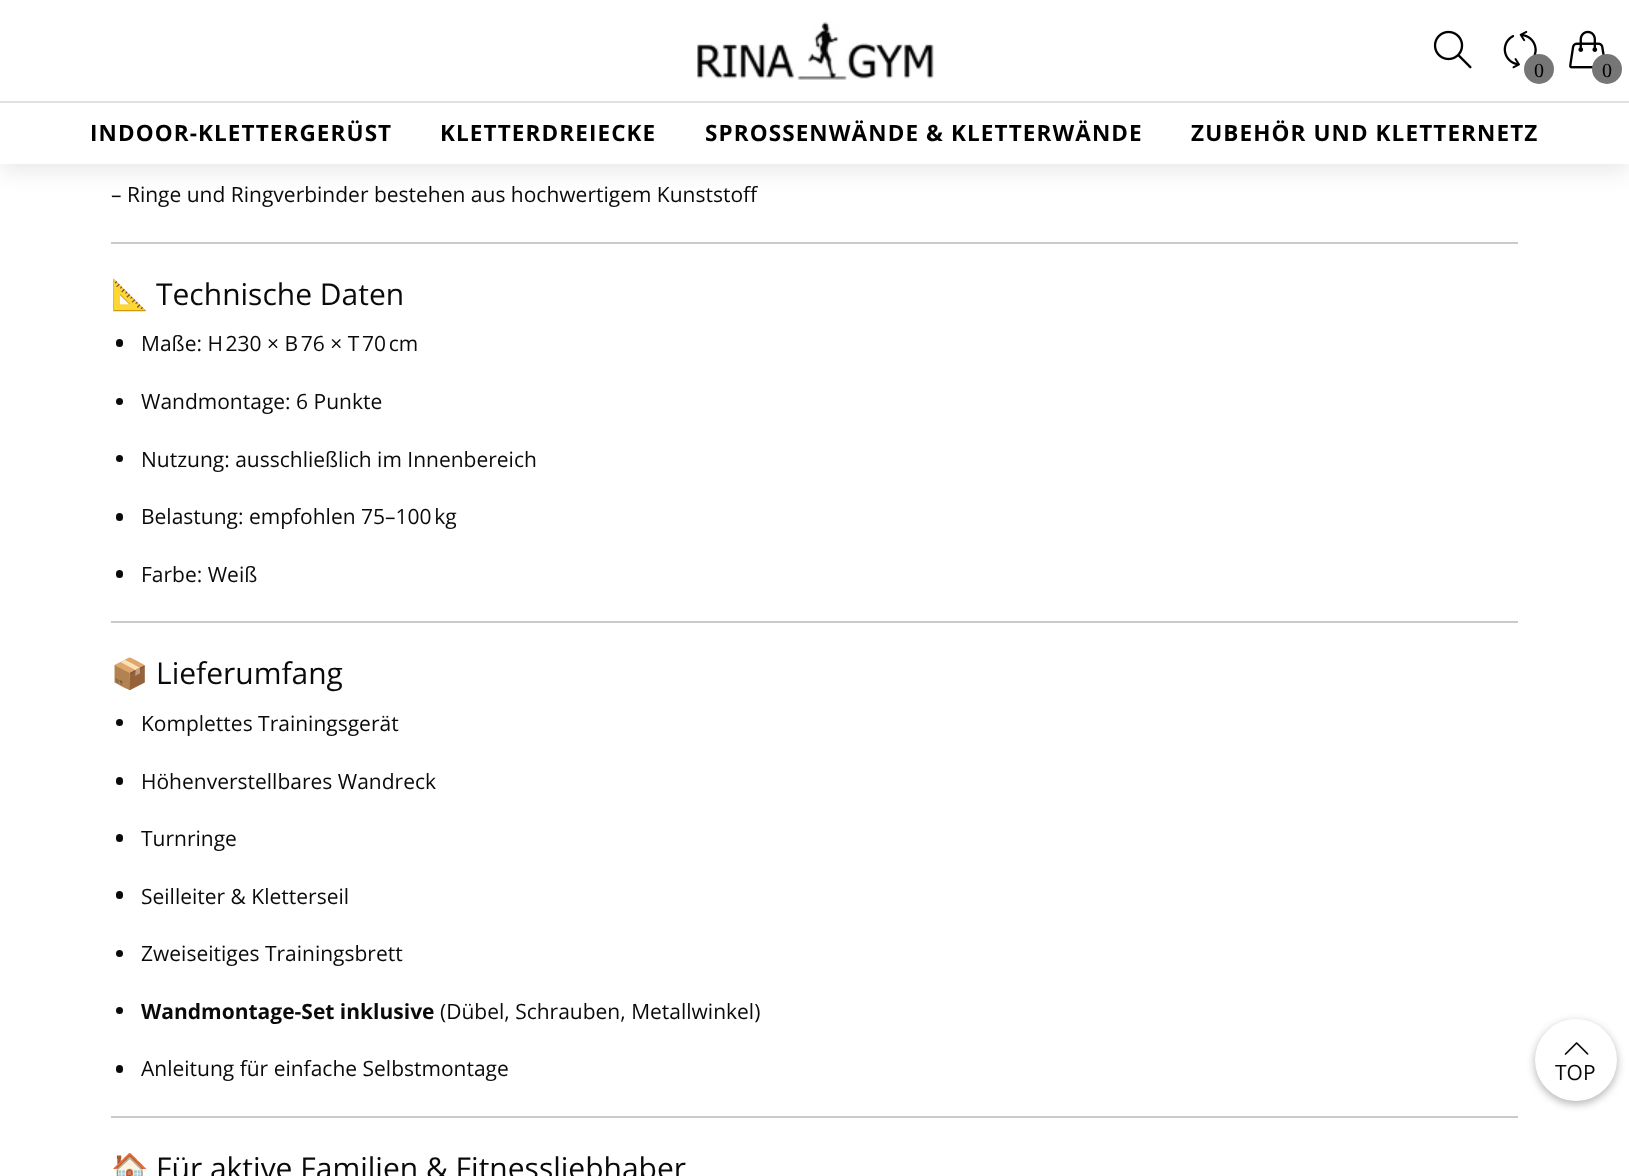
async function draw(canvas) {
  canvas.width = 1629
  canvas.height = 1176
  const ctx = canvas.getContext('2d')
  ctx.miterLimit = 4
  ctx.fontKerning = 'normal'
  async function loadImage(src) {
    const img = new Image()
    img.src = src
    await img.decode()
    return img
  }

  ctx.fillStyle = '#fff'
  ctx.fillRect(0, 0, 1629, 1176)
  ctx.fillStyle = '#1b1b1f1a'
  ctx.filter = 'blur(11px)'
  ctx.beginPath()
  ctx.rect(0, 8, 1629, 163)
  ctx.fill()
  ctx.filter = 'none'
  ctx.fillStyle = '#fff'
  ctx.fillRect(0, 0, 1629, 164)
  ctx.drawImage(await loadImage('image0.png'), 697, 21, 237, 59)
  ctx.drawImage(await loadImage('image1.png'), 1433, 30, 39, 39)
  ctx.drawImage(await loadImage('image2.png'), 1503, 30, 34, 39)
  ctx.fillStyle = '#767676'
  ctx.beginPath()
  ctx.arc(1539, 69, 15, 0, 2 * Math.PI)
  ctx.fill()
  ctx.font = '20px Liberation Serif'
  ctx.fillStyle = '#000'
  ctx.fillText('0', 1534, 77)
  ctx.drawImage(await loadImage('image3.png'), 1569, 30, 36, 39)
  ctx.fillStyle = '#767676'
  ctx.beginPath()
  ctx.arc(1607, 69, 15, 0, 2 * Math.PI)
  ctx.fill()
  ctx.fillStyle = '#000'
  ctx.fillText('0', 1602, 77)
  ctx.fillStyle = '#e1e1e1'
  ctx.fillRect(0, 101, 1629, 2)
  ctx.letterSpacing = '1.1px'
  ctx.font = 'bold 22.5px Open Sans'
  ctx.fillStyle = '#000'
  ctx.fillText('INDOOR-KLETTERGERÜST', 90, 141)
  ctx.fillText('KLETTERDREIECKE', 440, 141)
  ctx.fillText('SPROSSENWÄNDE & KLETTERWÄNDE', 705, 141)
  ctx.fillText('ZUBEHÖR UND KLETTERNETZ', 1191, 141)
  ctx.letterSpacing = '0px'
  ctx.font = '21px Open Sans'
  ctx.fillStyle = '#0a0a0a'
  ctx.fillText('– Ringe und Ringverbinder bestehen aus hochwertigem Kunststoff', 111, 202)
  ctx.fillStyle = '#cacaca'
  ctx.fillRect(111, 242, 1407, 2)
  ctx.font = '30px Noto Color Emoji'
  ctx.fillStyle = '#0a0a0a'
  ctx.fillText('📐', 111, 305)
  ctx.font = '30px Open Sans'
  ctx.fillText('Technische Daten', 156, 305)
  ctx.beginPath()
  ctx.roundRect(116, 339, 7, 8, 3.5)
  ctx.fill()
  ctx.font = '21px Open Sans'
  ctx.fillText('Maße: H 230 × B 76 × T 70 cm', 141, 351)
  ctx.beginPath()
  ctx.arc(119.5, 401.5, 3.5, 0, 2 * Math.PI)
  ctx.fill()
  ctx.fillText('Wandmontage: 6 Punkte', 141, 409)
  ctx.beginPath()
  ctx.arc(119.5, 458.5, 3.5, 0, 2 * Math.PI)
  ctx.fill()
  ctx.fillText('Nutzung: ausschließlich im Innenbereich', 141, 467)
  ctx.beginPath()
  ctx.roundRect(116, 513, 7, 8, 3.5)
  ctx.fill()
  ctx.fillText('Belastung: empfohlen 75–100 kg', 141, 524)
  ctx.beginPath()
  ctx.roundRect(116, 570, 7, 8, 3.5)
  ctx.fill()
  ctx.fillText('Farbe: Weiß', 141, 582)
  ctx.fillStyle = '#cacaca'
  ctx.fillRect(111, 621, 1407, 2)
  ctx.font = '30px Noto Color Emoji'
  ctx.fillStyle = '#0a0a0a'
  ctx.fillText('📦', 111, 684)
  ctx.font = '30px Open Sans'
  ctx.fillText('Lieferumfang', 156, 684)
  ctx.beginPath()
  ctx.arc(119.5, 722.5, 3.5, 0, 2 * Math.PI)
  ctx.fill()
  ctx.font = '21px Open Sans'
  ctx.fillText('Komplettes Trainingsgerät', 141, 731)
  ctx.beginPath()
  ctx.roundRect(116, 777, 7, 8, 3.5)
  ctx.fill()
  ctx.fillText('Höhenverstellbares Wandreck', 141, 789)
  ctx.beginPath()
  ctx.roundRect(116, 834, 7, 8, 3.5)
  ctx.fill()
  ctx.fillText('Turnringe', 141, 846)
  ctx.beginPath()
  ctx.roundRect(116, 891, 7, 8, 3.5)
  ctx.fill()
  ctx.fillText('Seilleiter & Kletterseil', 141, 904)
  ctx.beginPath()
  ctx.arc(119.5, 953.5, 3.5, 0, 2 * Math.PI)
  ctx.fill()
  ctx.fillText('Zweiseitiges Trainingsbrett', 141, 961)
  ctx.beginPath()
  ctx.arc(119.5, 1010.5, 3.5, 0, 2 * Math.PI)
  ctx.fill()
  ctx.font = 'bold 21px Open Sans'
  ctx.fillText('Wandmontage-Set inklusive', 141, 1019)
  ctx.font = '21px Open Sans'
  ctx.fillText('(Dübel, Schrauben, Metallwinkel)', 440, 1019)
  ctx.beginPath()
  ctx.roundRect(116, 1065, 7, 8, 3.5)
  ctx.fill()
  ctx.fillText('Anleitung für einfache Selbstmontage', 141, 1076)
  ctx.fillStyle = '#cacaca'
  ctx.fillRect(111, 1116, 1407, 2)
  ctx.font = '30px Noto Color Emoji'
  ctx.fillStyle = '#0a0a0a'
  ctx.fillText('🏠', 111, 1179)
  ctx.font = '30px Open Sans'
  ctx.fillText('Für aktive Familien & Fitnessliebhaber', 156, 1179)
  ctx.fillStyle = '#0303034d'
  ctx.filter = 'blur(4px)'
  ctx.beginPath()
  ctx.roundRect(1535, 1022, 82, 82, 41)
  ctx.fill()
  ctx.filter = 'none'
  ctx.fillStyle = '#fff'
  ctx.beginPath()
  ctx.arc(1576, 1060, 41, 0, 2 * Math.PI)
  ctx.fill()
  ctx.drawImage(await loadImage('image4.png'), 1564, 1042, 25, 13)
  ctx.font = '21px Open Sans'
  ctx.fillStyle = '#0a0a0a'
  ctx.fillText('TOP', 1555, 1080)
}

draw(document.querySelector('canvas'))
